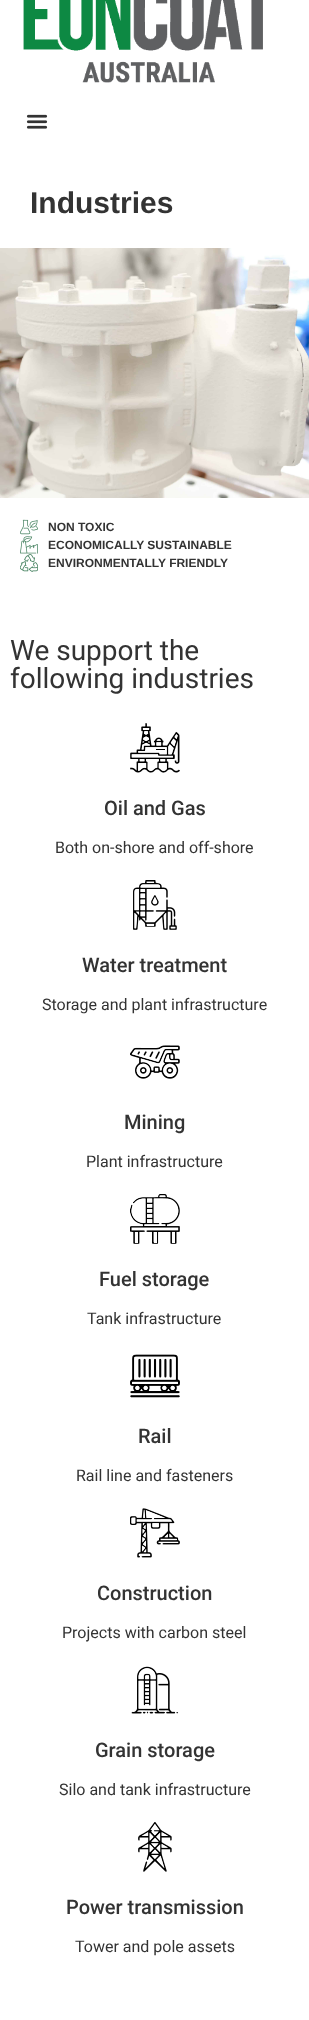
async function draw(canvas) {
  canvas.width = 309
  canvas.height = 2020
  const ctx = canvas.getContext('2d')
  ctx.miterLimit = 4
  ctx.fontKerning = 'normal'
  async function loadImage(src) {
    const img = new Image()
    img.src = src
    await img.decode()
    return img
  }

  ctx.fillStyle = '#fff'
  ctx.fillRect(0, 0, 309, 2020)
  ctx.drawImage(await loadImage('image0.png'), 23, 0, 240, 83)
  ctx.drawImage(await loadImage('image1.png'), 26, 114, 22, 15)
  ctx.font = 'bold 30px Liberation Sans'
  ctx.fillStyle = '#333'
  ctx.fillText('Industries', 30, 213)
  ctx.drawImage(await loadImage('image2.png'), 0, 248, 309, 250)
  ctx.drawImage(await loadImage('image3.png'), 20, 519, 18, 16)
  ctx.font = 'bold 12px Liberation Sans'
  ctx.fillText('NON TOXIC', 48, 531)
  ctx.drawImage(await loadImage('image4.png'), 20, 536, 18, 18)
  ctx.fillText('ECONOMICALLY SUSTAINABLE', 48, 549)
  ctx.drawImage(await loadImage('image5.png'), 20, 554, 18, 18)
  ctx.fillText('ENVIRONMENTALLY FRIENDLY', 48, 567)
  ctx.font = '28px Roboto'
  ctx.fillText('We support the', 10, 660)
  ctx.fillText('following industries', 10, 688)
  ctx.drawImage(await loadImage('image6.png'), 130, 723, 50, 50)
  ctx.font = '500 20px Roboto'
  ctx.fillText('Oil and Gas', 104, 815)
  ctx.font = '16px Roboto'
  ctx.fillText('Both on-shore and off-shore', 55, 853)
  ctx.drawImage(await loadImage('image7.png'), 133, 880, 44, 50)
  ctx.font = '500 20px Roboto'
  ctx.fillText('Water treatment', 82, 972)
  ctx.font = '16px Roboto'
  ctx.fillText('Storage and plant infrastructure', 42, 1010)
  ctx.drawImage(await loadImage('image8.png'), 130, 1045, 50, 34)
  ctx.font = '500 20px Roboto'
  ctx.fillText('Mining', 124, 1129)
  ctx.font = '16px Roboto'
  ctx.fillText('Plant infrastructure', 86, 1167)
  ctx.drawImage(await loadImage('image9.png'), 130, 1194, 50, 50)
  ctx.font = '500 20px Roboto'
  ctx.fillText('Fuel storage', 99, 1286)
  ctx.font = '16px Roboto'
  ctx.fillText('Tank infrastructure', 87, 1324)
  ctx.drawImage(await loadImage('image10.png'), 130, 1354, 50, 44)
  ctx.font = '500 20px Roboto'
  ctx.fillText('Rail', 138, 1443)
  ctx.font = '16px Roboto'
  ctx.fillText('Rail line and fasteners', 76, 1481)
  ctx.drawImage(await loadImage('image11.png'), 130, 1508, 50, 50)
  ctx.font = '500 20px Roboto'
  ctx.fillText('Construction', 97, 1600)
  ctx.font = '16px Roboto'
  ctx.fillText('Projects with carbon steel', 62, 1638)
  ctx.drawImage(await loadImage('image12.png'), 131, 1666, 48, 48)
  ctx.font = '500 20px Roboto'
  ctx.fillText('Grain storage', 95, 1757)
  ctx.font = '16px Roboto'
  ctx.fillText('Silo and tank infrastructure', 59, 1795)
  ctx.drawImage(await loadImage('image13.png'), 138, 1822, 34, 50)
  ctx.font = '500 20px Roboto'
  ctx.fillText('Power transmission', 66, 1914)
  ctx.font = '16px Roboto'
  ctx.fillText('Tower and pole assets', 75, 1952)
}

draw(document.querySelector('canvas'))
